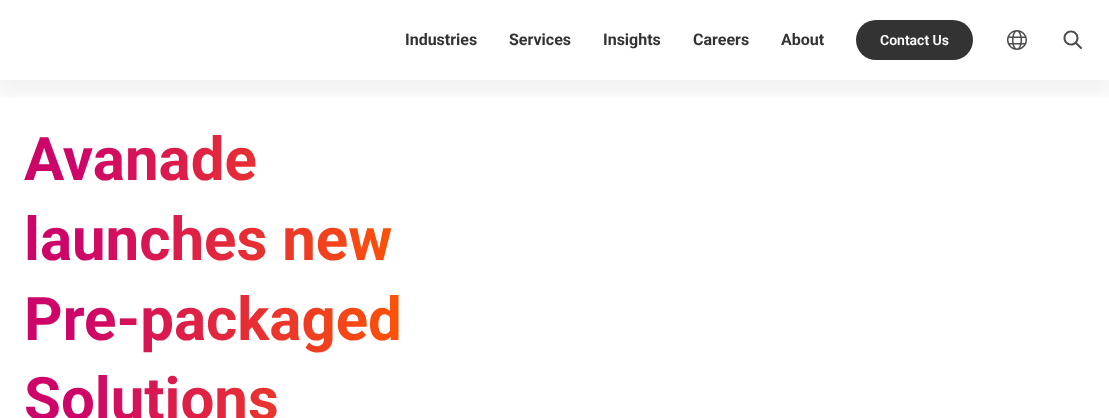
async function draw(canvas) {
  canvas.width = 1109
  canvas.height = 418
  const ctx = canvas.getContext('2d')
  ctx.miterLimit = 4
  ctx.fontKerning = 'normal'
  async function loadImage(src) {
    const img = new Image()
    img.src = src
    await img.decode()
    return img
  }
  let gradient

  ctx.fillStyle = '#fff'
  ctx.fillRect(0, 0, 1109, 418)
  ctx.save()
  ctx.beginPath()
  ctx.rect(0, 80, 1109, 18)
  ctx.clip()
  ctx.fillStyle = '#0000000d'
  ctx.filter = 'blur(10px)'
  ctx.beginPath()
  ctx.rect(-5, 5, 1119, 90)
  ctx.fill()
  ctx.filter = 'none'
  ctx.restore()
  ctx.font = 'bold 16px Roboto'
  ctx.fillStyle = '#333'
  ctx.fillText('Industries', 405, 45)
  ctx.fillText('Services', 509, 45)
  ctx.fillText('Insights', 603, 45)
  ctx.fillText('Careers', 693, 45)
  ctx.fillText('About', 781, 45)
  ctx.beginPath()
  ctx.roundRect(856, 20, 117, 40, 20)
  ctx.fill()
  ctx.font = '600 14px Roboto'
  ctx.fillStyle = '#fff'
  ctx.fillText('Contact Us', 880, 45)
  ctx.drawImage(await loadImage('image0.png'), 1007, 30, 20, 20)
  ctx.drawImage(await loadImage('image1.png'), 1063, 30, 19, 19)
  ctx.font = 'bold 60px Roboto'
  gradient = ctx.createLinearGradient(24, 280, 442, 280)
  gradient.addColorStop(0.13, '#ce0569')
  gradient.addColorStop(0.95, '#ff5800')
  ctx.fillStyle = gradient
  ctx.fillText('Avanade', 24, 180)
  ctx.fillText('launches new', 24, 260)
  ctx.fillText('Pre-packaged', 24, 340)
  ctx.fillText('Solutions', 24, 420)
}

draw(document.querySelector('canvas'))
